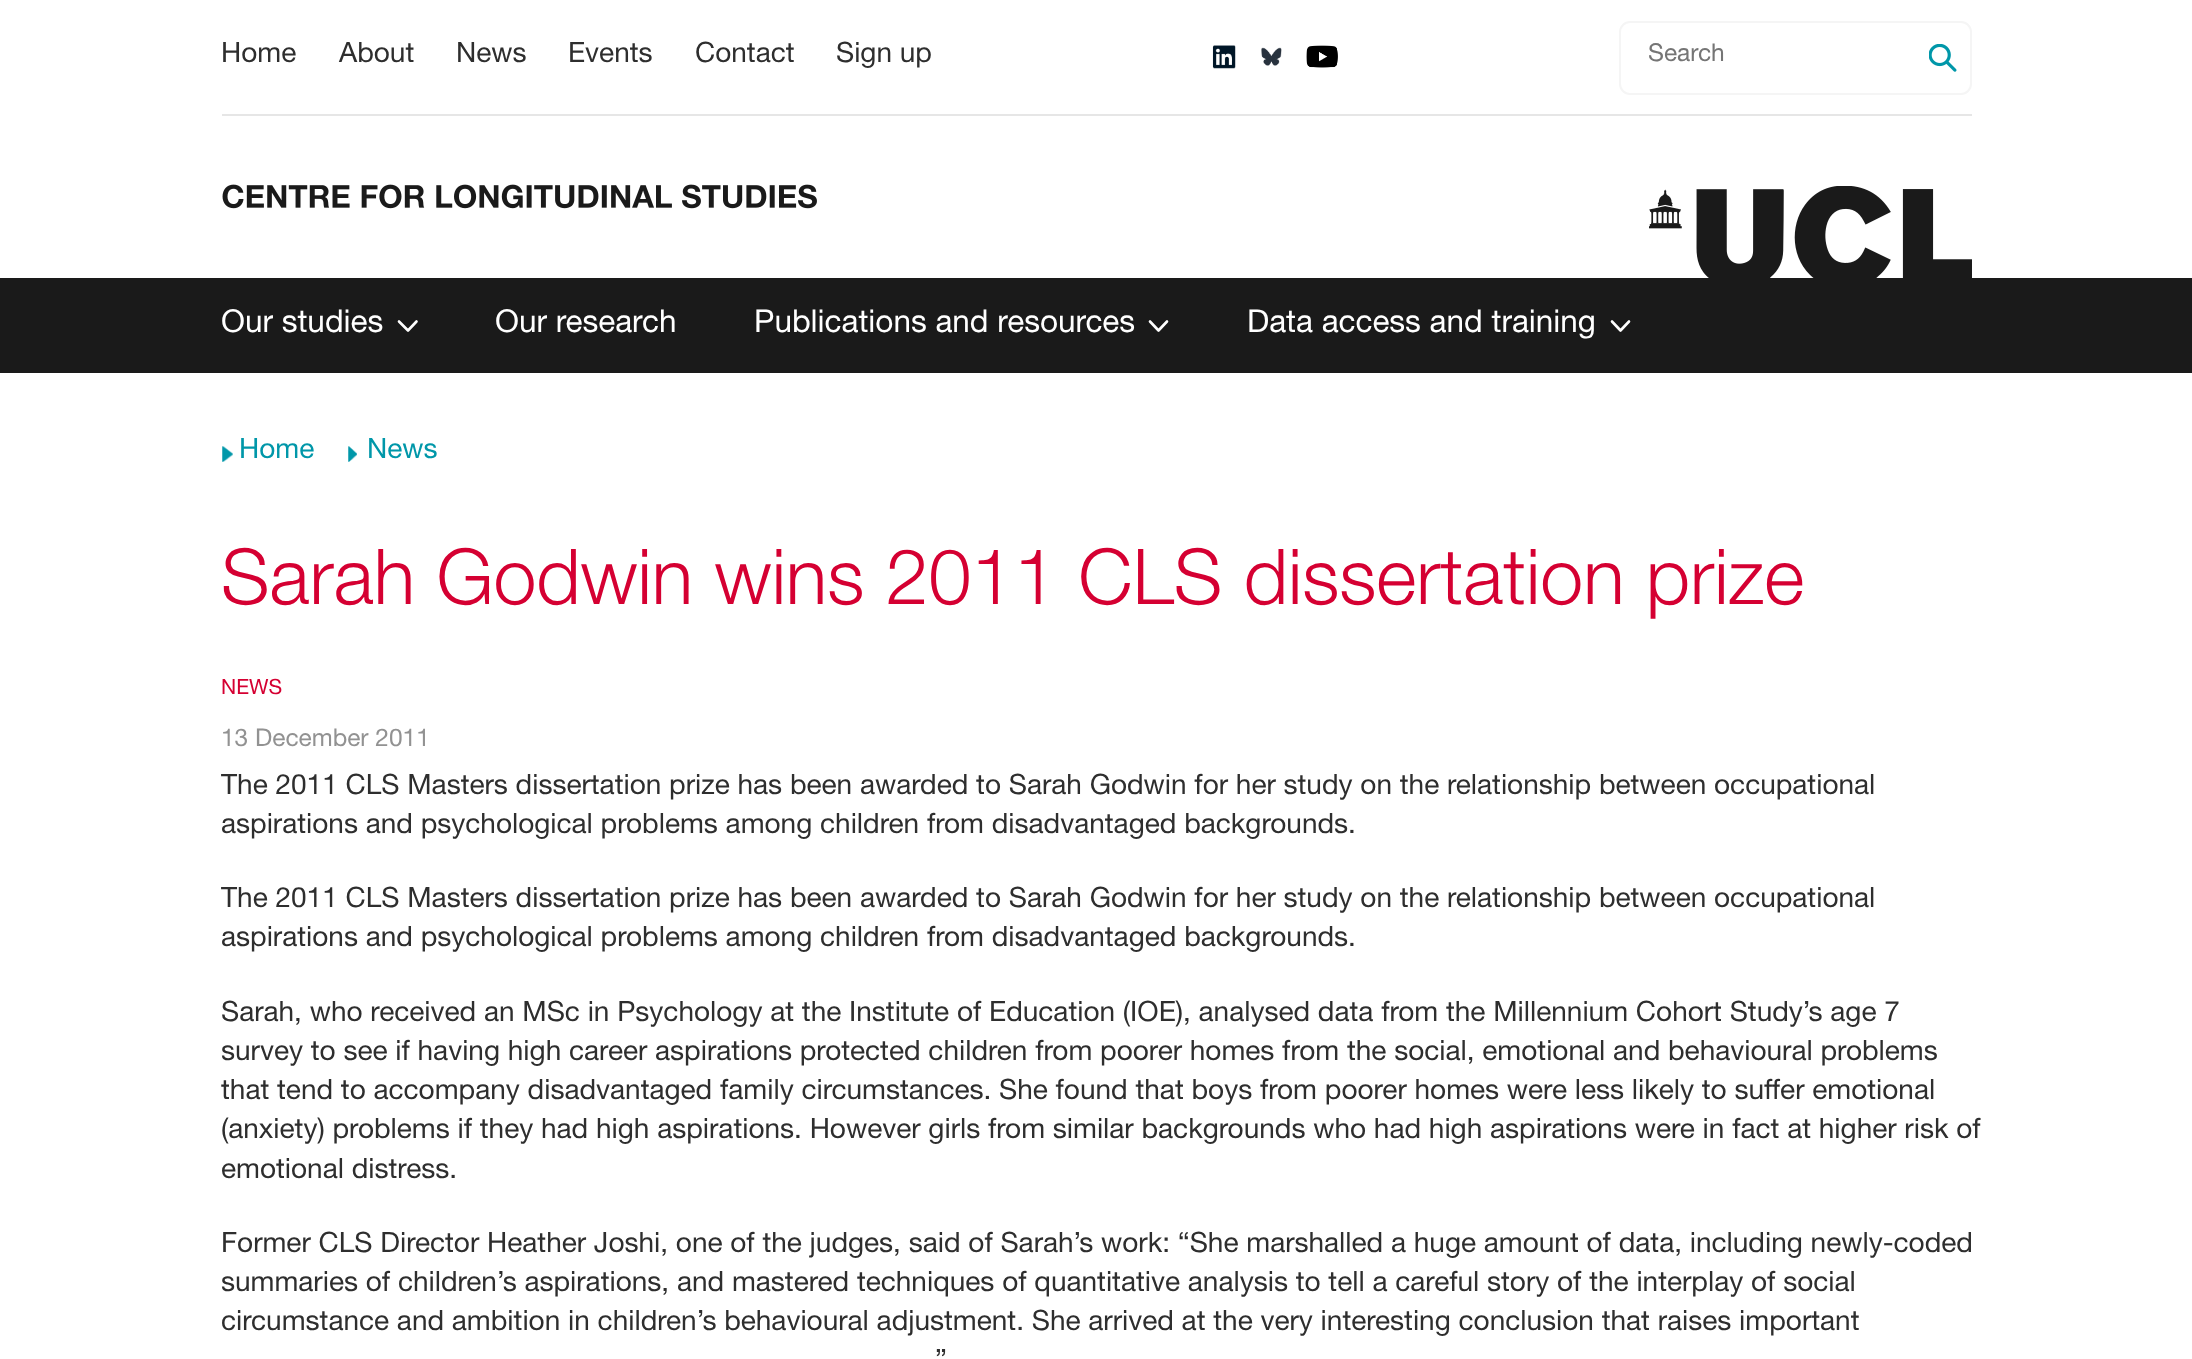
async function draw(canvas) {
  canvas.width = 2192
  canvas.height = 1359
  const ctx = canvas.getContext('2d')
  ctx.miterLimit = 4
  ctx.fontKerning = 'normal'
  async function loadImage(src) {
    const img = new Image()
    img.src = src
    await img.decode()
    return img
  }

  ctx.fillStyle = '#fff'
  ctx.fillRect(0, 0, 2192, 1359)
  ctx.fillStyle = '#e6e6e6'
  ctx.fillRect(222, 114, 1750, 2)
  ctx.font = '28px Helvetica Neue'
  ctx.fillStyle = '#2e2e2e'
  ctx.fillText('Home', 221, 62)
  ctx.fillText('About', 339, 62)
  ctx.fillText('News', 456, 62)
  ctx.fillText('Events', 568, 62)
  ctx.fillText('Contact', 695, 62)
  ctx.fillText('Sign up', 836, 62)
  ctx.drawImage(await loadImage('image0.png'), 1212, 45, 24, 24)
  ctx.drawImage(await loadImage('image1.png'), 1261, 47, 21, 19)
  ctx.drawImage(await loadImage('image2.png'), 1306, 45, 32, 23)
  ctx.beginPath()
  ctx.roundRect(1620, 22, 351, 72, 10)
  ctx.strokeStyle = '#f5f5f5'
  ctx.lineWidth = 2
  ctx.stroke()
  ctx.save()
  ctx.beginPath()
  ctx.rect(1649, 42, 213, 30)
  ctx.clip()
  ctx.font = '24.5px Helvetica Neue'
  ctx.fillStyle = '#757575'
  ctx.fillText('Search', 1648, 61)
  ctx.restore()
  ctx.drawImage(await loadImage('image3.png'), 1929, 44, 28, 28)
  ctx.drawImage(await loadImage('image4.png'), 222, 184, 595, 25)
  ctx.drawImage(await loadImage('image5.png'), 1649, 186, 323, 92)
  ctx.fillStyle = '#1a1a1a'
  ctx.fillRect(0, 278, 2192, 95)
  ctx.font = '31.5px Helvetica Neue'
  ctx.fillStyle = '#fff'
  ctx.fillText('Our studies', 221, 332)
  ctx.beginPath()
  ctx.moveTo(416.5, 321.5)
  ctx.lineTo(408, 330.5)
  ctx.lineTo(399, 321.5)
  ctx.strokeStyle = '#fff'
  ctx.lineWidth = 2.6
  ctx.lineCap = 'round'
  ctx.lineJoin = 'round'
  ctx.stroke()
  ctx.fillText('Our research', 495, 332)
  ctx.fillText('Publications and resources', 754, 332)
  ctx.beginPath()
  ctx.moveTo(1167, 321.5)
  ctx.lineTo(1158.5, 330.5)
  ctx.lineTo(1150, 321.5)
  ctx.stroke()
  ctx.fillText('Data access and training', 1247, 332)
  ctx.beginPath()
  ctx.moveTo(1629, 321.5)
  ctx.lineTo(1620.5, 330.5)
  ctx.lineTo(1612, 321.5)
  ctx.stroke()
  ctx.drawImage(await loadImage('image6.png'), 222, 446, 11, 16)
  ctx.font = '28px Helvetica Neue'
  ctx.fillStyle = '#0097a9'
  ctx.fillText('Home', 239, 458)
  ctx.drawImage(await loadImage('image7.png'), 348, 446, 9, 16)
  ctx.fillText('News', 367, 458)
  ctx.font = '300 77px Helvetica Neue'
  ctx.fillStyle = '#d50032'
  ctx.fillText('Sarah Godwin wins 2011 CLS dissertation prize', 221, 604)
  ctx.font = '21px Helvetica Neue'
  ctx.fillText('NEWS', 221, 694)
  ctx.font = '24.5px Helvetica Neue'
  ctx.fillStyle = '#929292'
  ctx.fillText('13 December 2011', 221, 746)
  ctx.font = '28px Helvetica Neue'
  ctx.fillStyle = '#2e2e2e'
  ctx.fillText('The 2011 CLS Masters dissertation prize has been awarded to Sarah Godwin for her study on the relationship between occupational', 221, 794)
  ctx.fillText('aspirations and psychological problems among children from disadvantaged backgrounds.', 221, 833)
  ctx.fillText('The 2011 CLS Masters dissertation prize has been awarded to Sarah Godwin for her study on the relationship between occupational', 221, 907)
  ctx.fillText('aspirations and psychological problems among children from disadvantaged backgrounds.', 221, 946)
  ctx.fillText('Sarah, who received an MSc in Psychology at the Institute of Education (IOE), analysed data from the Millennium Cohort Study’s age 7', 221, 1021)
  ctx.fillText('survey to see if having high career aspirations protected children from poorer homes from the social, emotional and behavioural problems', 221, 1060)
  ctx.fillText('that tend to accompany disadvantaged family circumstances. She found that boys from poorer homes were less likely to suffer emotional', 221, 1099)
  ctx.fillText('(anxiety) problems if they had high aspirations. However girls from similar backgrounds who had high aspirations were in fact at higher risk of', 221, 1138)
  ctx.fillText('emotional distress.', 221, 1178)
  ctx.fillText('Former CLS Director Heather Joshi, one of the judges, said of Sarah’s work: “She marshalled a huge amount of data, including newly-coded', 221, 1252)
  ctx.fillText('summaries of children’s aspirations, and mastered techniques of quantitative analysis to tell a careful story of the interplay of social', 221, 1291)
  ctx.fillText('circumstance and ambition in children’s behavioural adjustment. She arrived at the very interesting conclusion that raises important', 221, 1330)
  ctx.fillText('”', 935, 1369)
}

draw(document.querySelector('canvas'))
